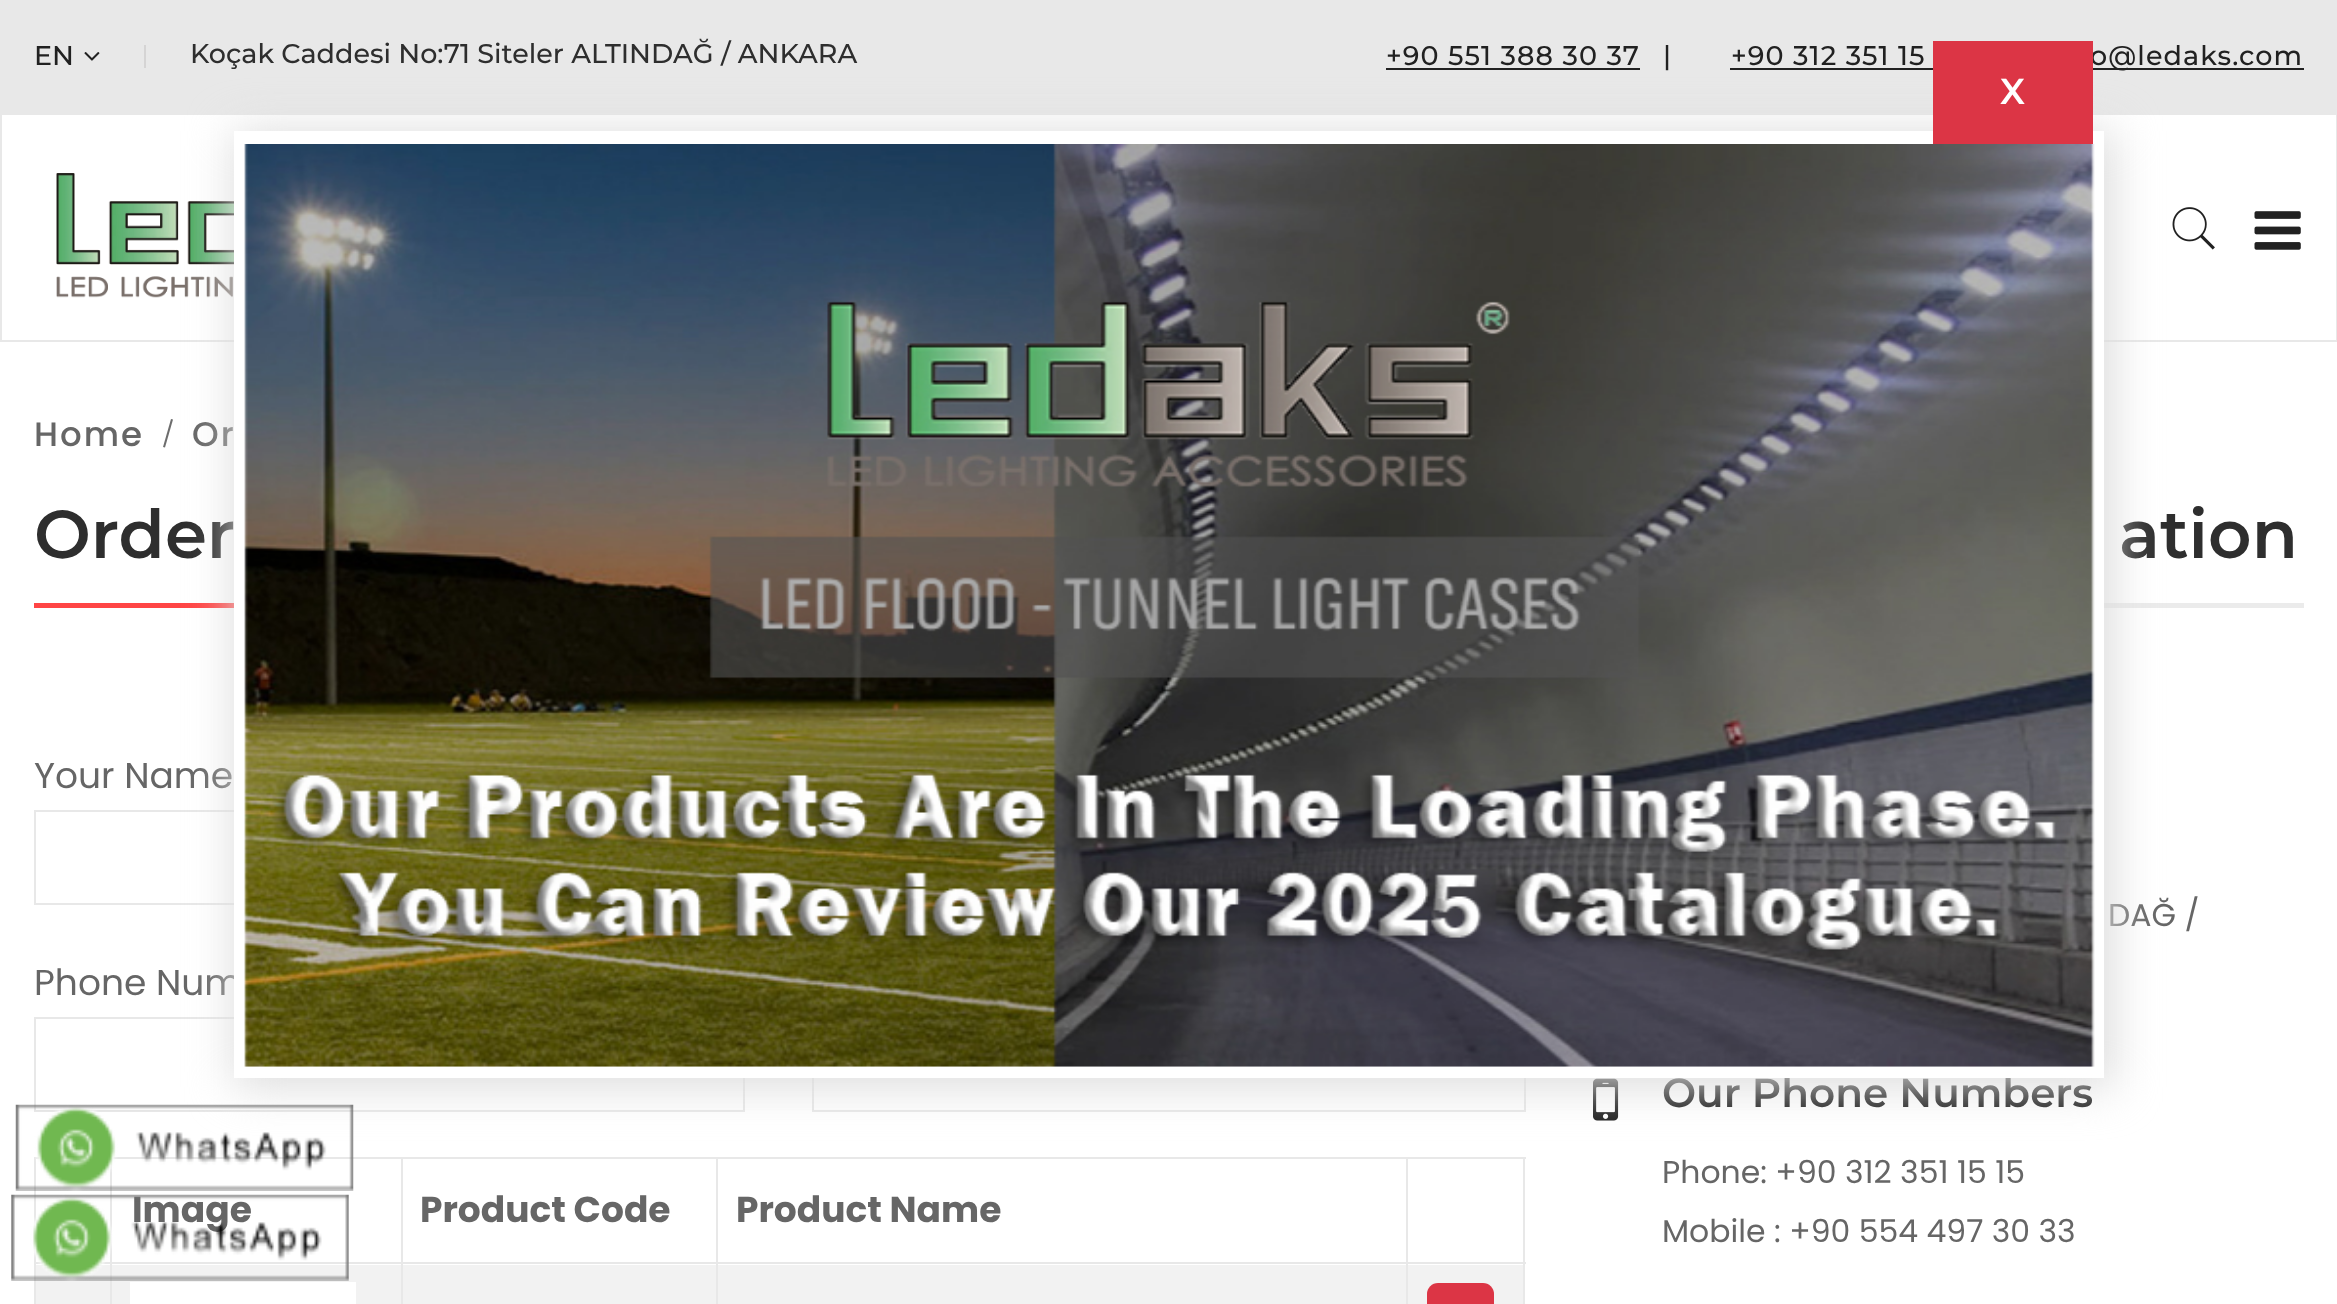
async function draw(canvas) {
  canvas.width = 2337
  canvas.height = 1304
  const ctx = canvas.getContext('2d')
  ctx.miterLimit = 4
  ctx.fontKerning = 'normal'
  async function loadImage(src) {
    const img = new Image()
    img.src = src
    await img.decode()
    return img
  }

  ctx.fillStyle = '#fff'
  ctx.fillRect(0, 0, 2337, 1304)
  ctx.fillStyle = '#e8e8e8'
  ctx.fillRect(0, 0, 2337, 113)
  ctx.font = '500 27px Montserrat'
  ctx.fillStyle = '#212121'
  ctx.fillText('EN', 34, 65)
  ctx.drawImage(await loadImage('image0.png'), 84, 52, 16, 9)
  ctx.fillStyle = '#d5d4d4'
  ctx.fillRect(144, 45, 2, 23)
  ctx.fillStyle = '#2e2e2e'
  ctx.fillText('Koçak Caddesi No:71 Siteler ALTINDAĞ / ANKARA', 190, 63)
  ctx.letterSpacing = '1.1px'
  ctx.fillStyle = '#212121'
  ctx.fillText('+90 551 388 30 37', 1386, 65)
  ctx.fillRect(1386, 68, 254, 2)
  ctx.letterSpacing = '0px'
  ctx.fillText('|', 1663, 65)
  ctx.letterSpacing = '1.1px'
  ctx.fillText('+90 312 351 15', 1731, 65)
  ctx.fillRect(1730, 68, 203, 2)
  ctx.fillRect(2093, 68, 211, 2)
  ctx.fillText('o@ledaks.com', 2090, 65)
  ctx.strokeStyle = '#e8e8e8'
  ctx.lineWidth = 2
  ctx.strokeRect(1, 114, 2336, 227)
  ctx.drawImage(await loadImage('image1.png'), 56, 173, 178, 125)
  ctx.drawImage(await loadImage('image2.png'), 2172, 207, 43, 43)
  ctx.drawImage(await loadImage('image3.png'), 2254, 211, 47, 39)
  ctx.letterSpacing = '2px'
  ctx.font = '500 34px Poppins'
  ctx.fillStyle = '#666'
  ctx.fillText('Home', 34, 446)
  ctx.fillStyle = '#6d6d6d'
  ctx.beginPath()
  ctx.moveTo(173, 419.5)
  ctx.lineTo(165, 447.5)
  ctx.lineTo(163, 447)
  ctx.lineTo(171, 419)
  ctx.closePath()
  ctx.fill()
  ctx.fillStyle = '#666'
  ctx.fillText('Or', 192, 446)
  ctx.letterSpacing = '0px'
  ctx.font = '600 67.5px Montserrat'
  ctx.fillStyle = '#2e2e2e'
  ctx.fillText('Order', 34, 558)
  ctx.fillStyle = '#ff4545'
  ctx.fillRect(34, 603, 200, 5)
  ctx.font = '36px Poppins'
  ctx.fillStyle = '#666'
  ctx.fillText('Your Name', 34, 788)
  ctx.strokeRect(35, 811, 709, 93)
  ctx.fillText('Phone Num', 34, 995)
  ctx.strokeRect(35, 1018, 709, 93)
  ctx.strokeRect(813, 1018, 712, 93)
  ctx.fillStyle = '#e8e8e8'
  ctx.fillRect(34, 1262, 1492, 2)
  ctx.fillRect(1523, 1262, 2, 42)
  ctx.fillRect(34, 1262, 2, 42)
  ctx.fillStyle = '#f2f2f2'
  ctx.fillRect(36, 1265, 365, 39)
  ctx.fillStyle = '#e8e8e8'
  ctx.fillRect(34, 1157, 1492, 2)
  ctx.fillRect(110, 1157, 2, 147)
  ctx.fillStyle = '#fff'
  ctx.fillRect(130, 1282, 226, 22)
  ctx.fillStyle = '#f2f2f2'
  ctx.fillRect(403, 1265, 313, 39)
  ctx.fillStyle = '#e8e8e8'
  ctx.fillRect(401, 1157, 2, 147)
  ctx.fillStyle = '#f2f2f2'
  ctx.fillRect(718, 1265, 688, 39)
  ctx.fillStyle = '#e8e8e8'
  ctx.fillRect(716, 1157, 2, 147)
  ctx.fillStyle = '#f2f2f2'
  ctx.fillRect(1408, 1265, 115, 39)
  ctx.fillStyle = '#e8e8e8'
  ctx.fillRect(1406, 1157, 2, 147)
  ctx.fillStyle = '#dc3545'
  ctx.beginPath()
  ctx.roundRect(1427, 1283, 67, 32, 11)
  ctx.fill()
  ctx.fillStyle = '#e8e8e8'
  ctx.fillRect(1523, 1157, 2, 108)
  ctx.fillRect(34, 1157, 2, 108)
  ctx.font = 'bold 36px Poppins'
  ctx.fillStyle = '#666'
  ctx.fillText('Image', 132, 1222)
  ctx.fillText('Product Code', 420, 1222)
  ctx.fillText('Product Name', 736, 1222)
  ctx.font = '600 67.5px Montserrat'
  ctx.fillStyle = '#2e2e2e'
  ctx.fillText('ation', 2119, 558)
  ctx.fillStyle = '#ebebeb'
  ctx.fillRect(2104, 603, 200, 5)
  ctx.font = '31.5px Poppins'
  ctx.fillStyle = '#666'
  ctx.fillText('DAĞ /', 2108, 926)
  ctx.drawImage(await loadImage('image4.png'), 1593, 1078, 26, 43)
  ctx.font = '600 40.5px Montserrat'
  ctx.fillStyle = '#212121'
  ctx.fillText('Our Phone Numbers', 1662, 1107)
  ctx.font = '31.5px Poppins'
  ctx.fillStyle = '#666'
  ctx.fillText('Phone: +90 312 351 15 15', 1662, 1183)
  ctx.fillText('Mobile : +90 554 497 30 33', 1662, 1242)
  ctx.fillStyle = '#dcdcdc'
  ctx.filter = 'blur(22.5px)'
  ctx.beginPath()
  ctx.rect(234, 131, 1879, 956)
  ctx.fill()
  ctx.filter = 'none'
  ctx.drawImage(await loadImage('image5.png'), 15, 1104, 339, 87)
  ctx.drawImage(await loadImage('image6.png'), 11, 1194, 338, 87)
  ctx.fillStyle = '#fff'
  ctx.fillRect(234, 131, 1870, 947)
  ctx.fillStyle = '#dc3545'
  ctx.fillRect(1933, 41, 160, 103)
  ctx.font = '600 36px Montserrat'
  ctx.fillStyle = '#fff'
  ctx.fillText('X', 2000, 104)
  ctx.drawImage(await loadImage('image7.png'), 244, 144, 1851, 923)
}

draw(document.querySelector('canvas'))
